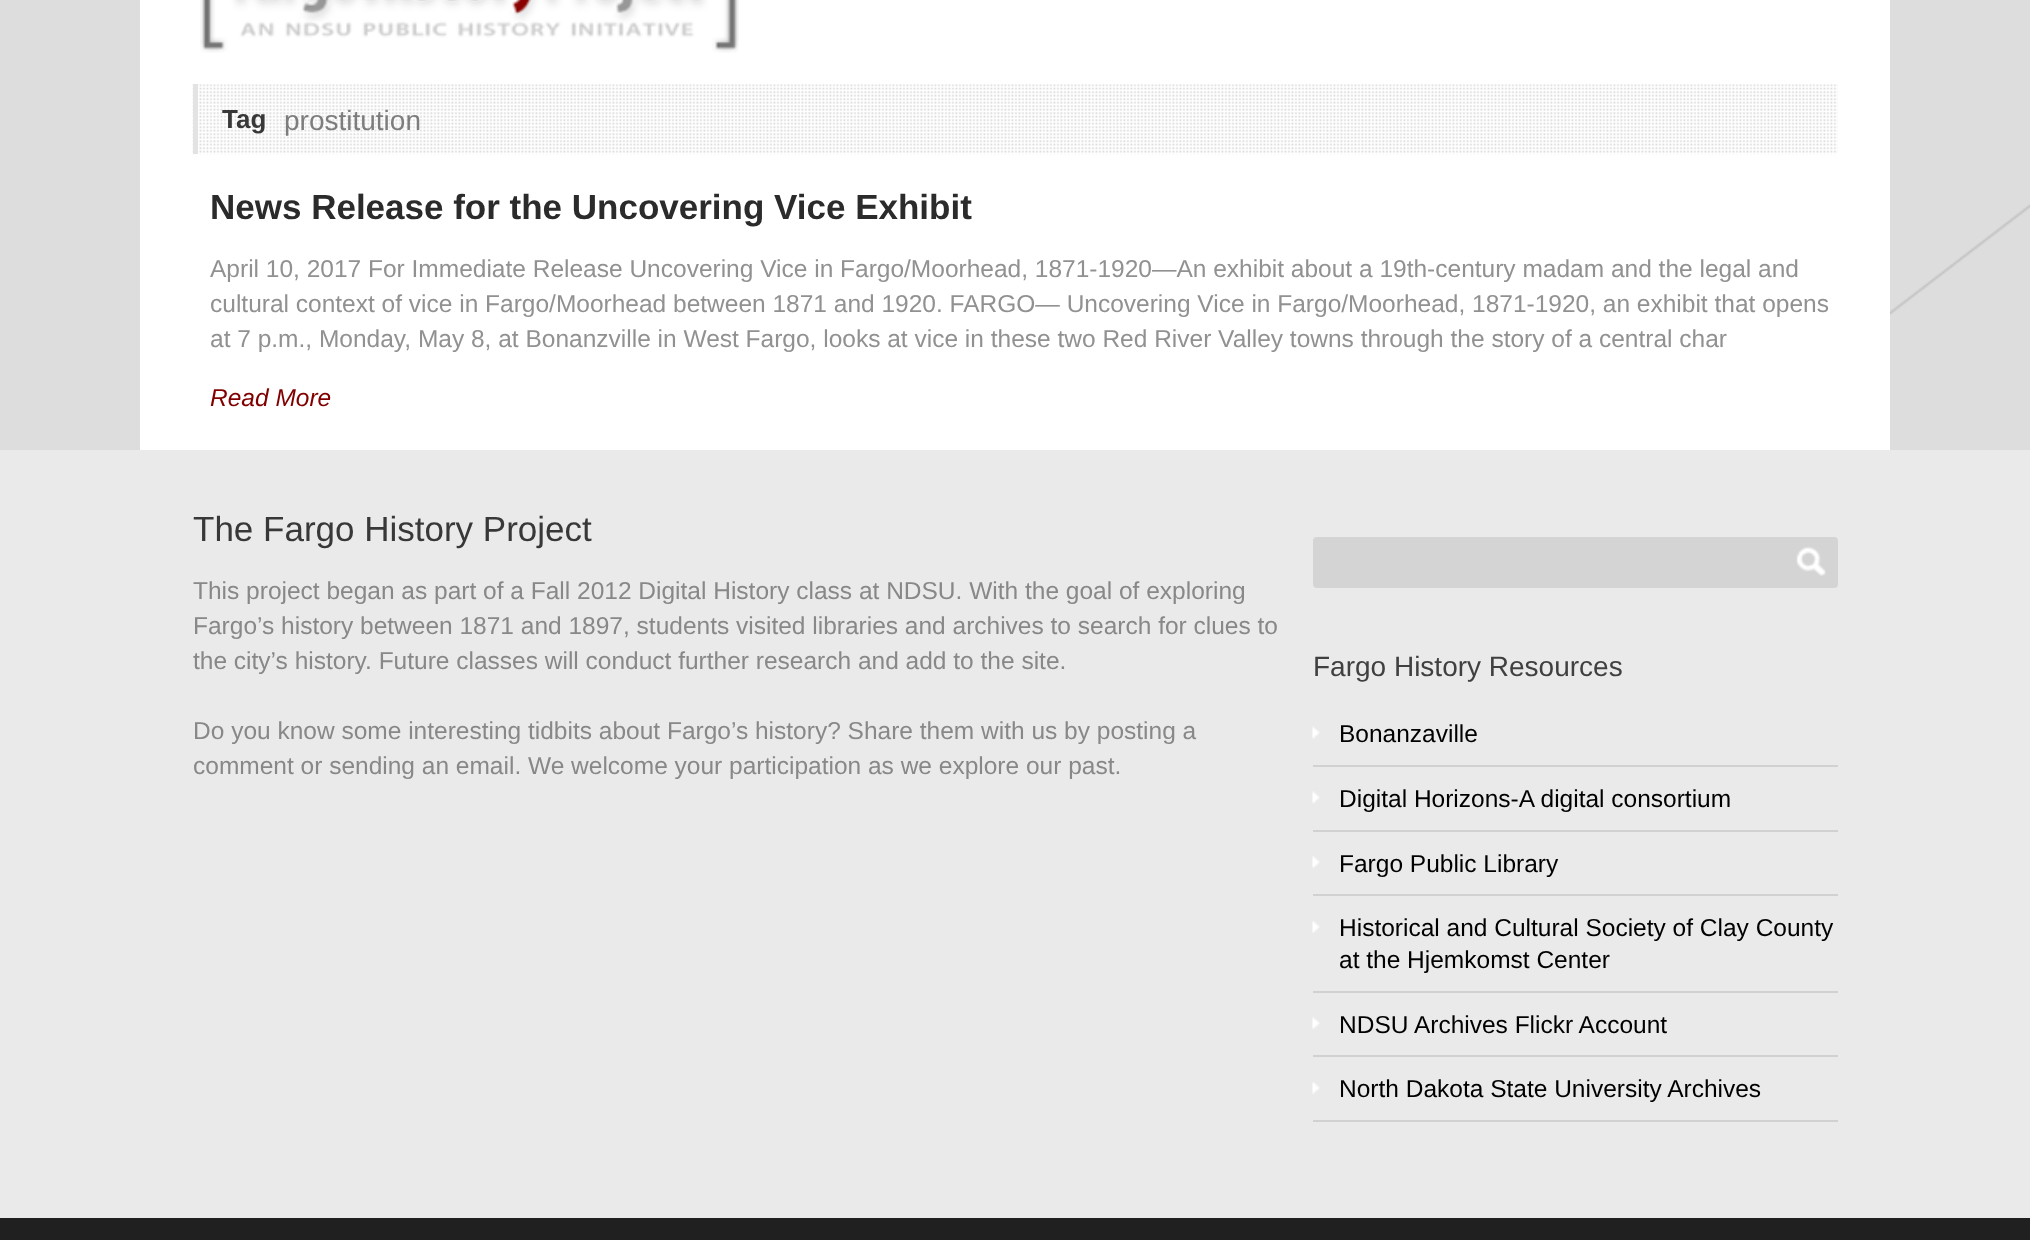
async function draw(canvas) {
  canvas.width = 2030
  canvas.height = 1240
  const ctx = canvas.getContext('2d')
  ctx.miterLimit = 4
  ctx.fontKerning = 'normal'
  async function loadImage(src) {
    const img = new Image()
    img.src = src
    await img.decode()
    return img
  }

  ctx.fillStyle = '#ddd'
  ctx.fillRect(0, 0, 2030, 1240)
  ctx.drawImage(await loadImage('image0.png'), 1890, 204, 140, 111)
  ctx.fillStyle = '#fff'
  ctx.fillRect(140, 0, 1750, 450)
  ctx.drawImage(await loadImage('image1.png'), 200, 0, 539, 53)
  ctx.drawImage(await loadImage('image2.png'), 192, 84, 1646, 71)
  ctx.fillStyle = '#e3e3e3'
  ctx.fillRect(193, 84, 5, 70)
  ctx.font = 'bold 26px Liberation Sans'
  ctx.fillStyle = '#383838'
  ctx.fillText('Tag', 222, 128)
  ctx.font = '28px Liberation Sans'
  ctx.fillStyle = '#7d7d7d'
  ctx.fillText('prostitution', 284, 130)
  ctx.font = 'bold 35px Liberation Sans'
  ctx.fillStyle = '#2b2b2b'
  ctx.fillText('News Release for the Uncovering Vice Exhibit', 210, 219)
  ctx.font = '24.5px Liberation Sans'
  ctx.fillStyle = '#919191'
  ctx.fillText('April 10, 2017 For Immediate Release Uncovering Vice in Fargo/Moorhead, 1871-1920—An exhibit about a 19th-century madam and the legal and', 210, 277)
  ctx.fillText('cultural context of vice in Fargo/Moorhead between 1871 and 1920. FARGO— Uncovering Vice in Fargo/Moorhead, 1871-1920, an exhibit that opens', 210, 312)
  ctx.fillText('at 7 p.m., Monday, May 8, at Bonanzville in West Fargo, looks at vice in these two Red River Valley towns through the story of a central char', 210, 347)
  ctx.font = 'italic 24.5px Liberation Sans'
  ctx.fillStyle = '#800000'
  ctx.fillText('Read More', 210, 406)
  ctx.fillStyle = '#eaeaea'
  ctx.fillRect(0, 450, 2030, 768)
  ctx.font = '35px Liberation Sans'
  ctx.fillStyle = '#383838'
  ctx.fillText('The Fargo History Project', 193, 541)
  ctx.font = '24.5px Liberation Sans'
  ctx.fillStyle = '#888'
  ctx.fillText('This project began as part of a Fall 2012 Digital History class at NDSU. With the goal of exploring', 193, 599)
  ctx.fillText('Fargo’s history between 1871 and 1897, students visited libraries and archives to search for clues to', 193, 634)
  ctx.fillText('the city’s history. Future classes will conduct further research and add to the site.', 193, 669)
  ctx.fillText('Do you know some interesting tidbits about Fargo’s history? Share them with us by posting a', 193, 739)
  ctx.fillText('comment or sending an email. We welcome your participation as we explore our past.', 193, 774)
  ctx.fillStyle = '#d4d4d4'
  ctx.beginPath()
  ctx.roundRect(1314, 538, 523, 49, 3)
  ctx.fill()
  ctx.strokeStyle = '#d4d4d4'
  ctx.lineWidth = 2
  ctx.stroke()
  ctx.drawImage(await loadImage('image3.png'), 1796, 546, 30, 30)
  ctx.font = '28px Liberation Sans'
  ctx.fillStyle = '#404040'
  ctx.fillText('Fargo History Resources', 1313, 676)
  ctx.drawImage(await loadImage('image4.png'), 1312, 726, 8, 13)
  ctx.fillStyle = '#d1d1d1'
  ctx.fillRect(1313, 765, 525, 2)
  ctx.font = '24.5px Liberation Sans'
  ctx.fillStyle = '#000'
  ctx.fillText('Bonanzaville', 1339, 742)
  ctx.drawImage(await loadImage('image5.png'), 1312, 791, 8, 13)
  ctx.fillStyle = '#d1d1d1'
  ctx.fillRect(1313, 830, 525, 2)
  ctx.fillStyle = '#000'
  ctx.fillText('Digital Horizons-A digital consortium', 1339, 807)
  ctx.drawImage(await loadImage('image6.png'), 1312, 856, 8, 12)
  ctx.fillStyle = '#d1d1d1'
  ctx.fillRect(1313, 894, 525, 2)
  ctx.fillStyle = '#000'
  ctx.fillText('Fargo Public Library', 1339, 872)
  ctx.drawImage(await loadImage('image7.png'), 1312, 921, 8, 12)
  ctx.fillStyle = '#d1d1d1'
  ctx.fillRect(1313, 991, 525, 2)
  ctx.fillStyle = '#000'
  ctx.fillText('Historical and Cultural Society of Clay County', 1339, 936)
  ctx.fillText('at the Hjemkomst Center', 1339, 968)
  ctx.drawImage(await loadImage('image6.png'), 1312, 1017, 8, 12)
  ctx.fillStyle = '#d1d1d1'
  ctx.fillRect(1313, 1055, 525, 2)
  ctx.fillStyle = '#000'
  ctx.fillText('NDSU Archives Flickr Account', 1339, 1033)
  ctx.drawImage(await loadImage('image7.png'), 1312, 1082, 8, 12)
  ctx.fillStyle = '#d1d1d1'
  ctx.fillRect(1313, 1120, 525, 2)
  ctx.fillStyle = '#000'
  ctx.fillText('North Dakota State University Archives', 1339, 1097)
  ctx.fillStyle = '#202020'
  ctx.fillRect(0, 1218, 2030, 22)
}

draw(document.querySelector('canvas'))
